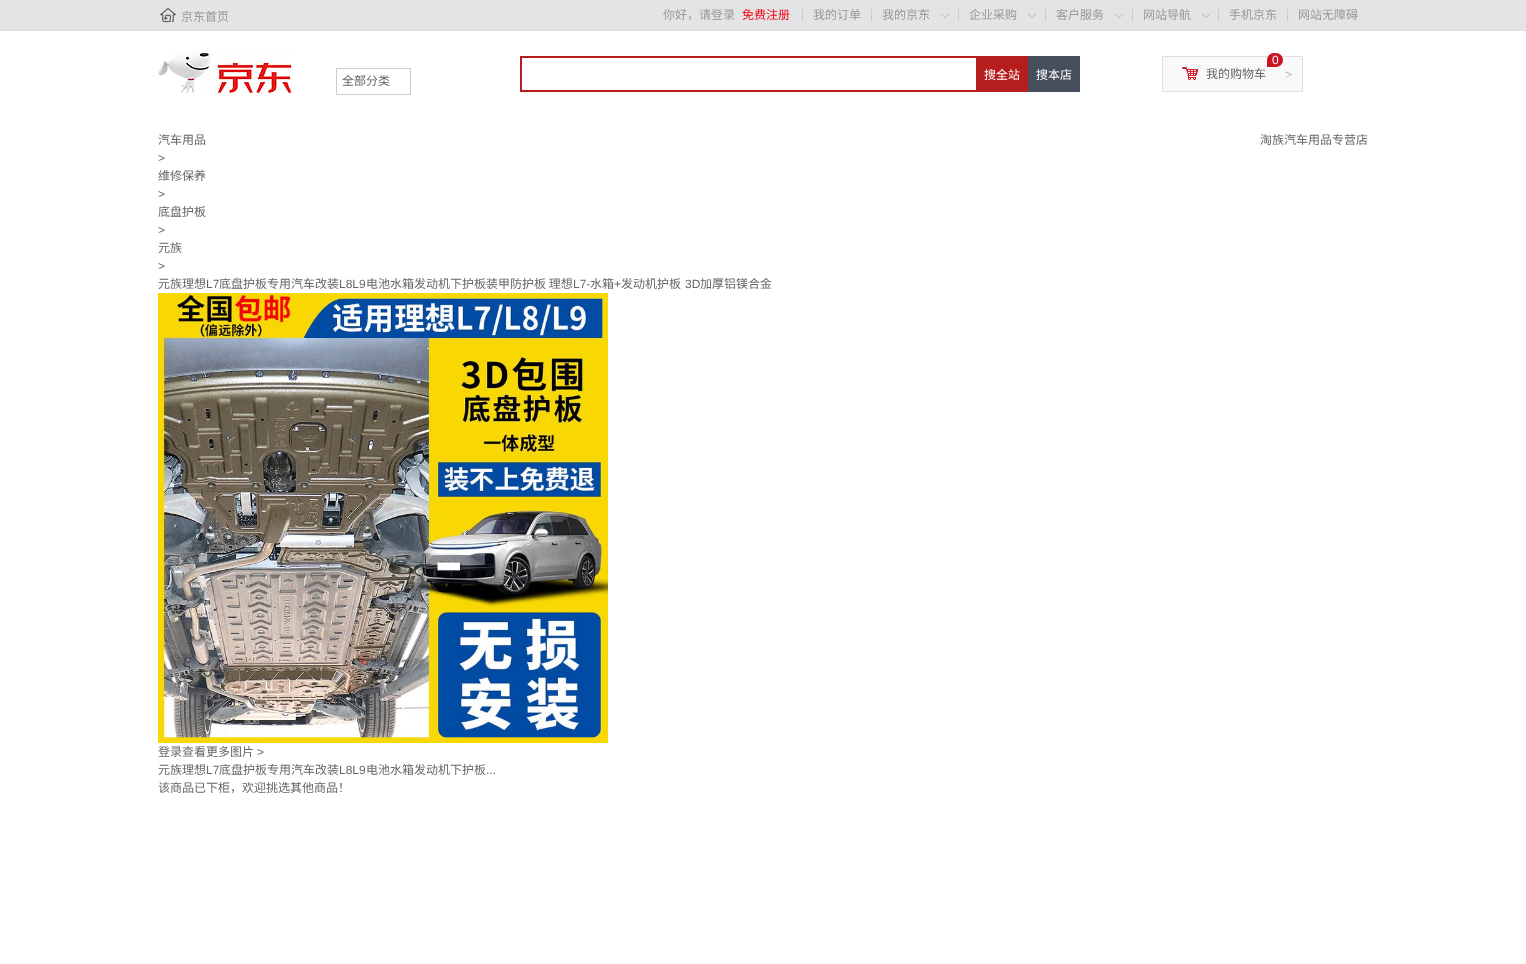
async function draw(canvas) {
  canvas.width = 1526
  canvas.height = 964
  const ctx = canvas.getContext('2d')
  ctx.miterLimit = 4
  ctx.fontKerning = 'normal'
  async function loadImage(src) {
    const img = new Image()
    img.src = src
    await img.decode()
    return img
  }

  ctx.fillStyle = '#fff'
  ctx.fillRect(0, 0, 1526, 964)
  ctx.fillStyle = '#e3e4e5'
  ctx.fillRect(0, 0, 1526, 30)
  ctx.fillStyle = '#ddd'
  ctx.fillRect(0, 30, 1526, 1)
  ctx.drawImage(await loadImage('image0.png'), 160, 8, 16, 15)
  ctx.font = '12px Noto Sans CJK SC'
  ctx.fillStyle = '#999'
  ctx.fillText('京东首页', 181, 21)
  ctx.fillText('你好，请登录', 663, 19)
  ctx.fillStyle = '#f30213'
  ctx.fillText('免费注册', 742, 19)
  ctx.fillStyle = '#ccc'
  ctx.fillRect(802, 9, 1, 12)
  ctx.fillStyle = '#999'
  ctx.fillText('我的订单', 813, 19)
  ctx.fillStyle = '#ccc'
  ctx.fillRect(871, 9, 1, 12)
  ctx.fillStyle = '#999'
  ctx.fillText('我的京东', 882, 19)
  ctx.drawImage(await loadImage('image1.png'), 940, 13, 10, 5)
  ctx.fillStyle = '#ccc'
  ctx.fillRect(958, 9, 1, 12)
  ctx.fillStyle = '#999'
  ctx.fillText('企业采购', 969, 19)
  ctx.drawImage(await loadImage('image1.png'), 1027, 13, 10, 5)
  ctx.fillStyle = '#ccc'
  ctx.fillRect(1045, 9, 1, 12)
  ctx.fillStyle = '#999'
  ctx.fillText('客户服务', 1056, 19)
  ctx.drawImage(await loadImage('image1.png'), 1114, 13, 10, 5)
  ctx.fillStyle = '#ccc'
  ctx.fillRect(1132, 9, 1, 12)
  ctx.fillStyle = '#999'
  ctx.fillText('网站导航', 1143, 19)
  ctx.drawImage(await loadImage('image1.png'), 1201, 13, 10, 5)
  ctx.fillStyle = '#ccc'
  ctx.fillRect(1218, 9, 1, 12)
  ctx.fillStyle = '#999'
  ctx.fillText('手机京东', 1229, 19)
  ctx.fillStyle = '#ccc'
  ctx.fillRect(1287, 9, 1, 12)
  ctx.fillStyle = '#999'
  ctx.fillText('网站无障碍', 1298, 19)
  ctx.drawImage(await loadImage('image2.png'), 158, 51, 134, 42)
  ctx.strokeStyle = '#ccc'
  ctx.strokeRect(336.5, 68.5, 74, 26)
  ctx.fillStyle = '#666'
  ctx.fillText('全部分类', 342, 85)
  ctx.fillStyle = '#b61d1d'
  ctx.fillRect(520, 56, 456, 2)
  ctx.fillRect(520, 90, 456, 2)
  ctx.fillRect(520, 56, 2, 36)
  ctx.fillRect(976, 56, 52, 36)
  ctx.fillStyle = '#fff'
  ctx.fillText('搜全站', 984, 79)
  ctx.fillStyle = '#474e5c'
  ctx.fillRect(1028, 56, 52, 36)
  ctx.fillStyle = '#fff'
  ctx.fillText('搜本店', 1036, 79)
  ctx.fillStyle = '#f9f9f9'
  ctx.beginPath()
  ctx.rect(1162.5, 56.5, 140, 35)
  ctx.fill()
  ctx.strokeStyle = '#dfdfdf'
  ctx.stroke()
  ctx.fillStyle = '#c81623'
  ctx.beginPath()
  ctx.roundRect(1267, 53, 16, 14, [7, 7, 7, 0])
  ctx.fill()
  ctx.font = '12px Liberation Sans'
  ctx.fillStyle = '#fff'
  ctx.fillText('0', 1272, 64)
  ctx.drawImage(await loadImage('image3.png'), 1182, 67, 16, 13)
  ctx.font = '12px Noto Sans CJK SC'
  ctx.fillStyle = '#666'
  ctx.fillText('我的购物车', 1206, 78)
  ctx.font = '13px Liberation Serif'
  ctx.fillStyle = '#999'
  ctx.fillText('>', 1285, 79)
  ctx.font = '12px Noto Sans CJK SC'
  ctx.fillStyle = '#666'
  ctx.fillText('汽车用品', 158, 144)
  ctx.font = '12px Liberation Sans'
  ctx.fillText('>', 158, 162)
  ctx.font = '12px Noto Sans CJK SC'
  ctx.fillText('维修保养', 158, 180)
  ctx.font = '12px Liberation Sans'
  ctx.fillText('>', 158, 198)
  ctx.font = '12px Noto Sans CJK SC'
  ctx.fillText('底盘护板', 158, 216)
  ctx.font = '12px Liberation Sans'
  ctx.fillText('>', 158, 234)
  ctx.font = '12px Noto Sans CJK SC'
  ctx.fillText('元族', 158, 252)
  ctx.font = '12px Liberation Sans'
  ctx.fillText('>', 158, 270)
  ctx.font = '12px Noto Sans CJK SC'
  ctx.fillText('元族理想', 158, 288)
  ctx.font = '12px Liberation Sans'
  ctx.fillText('L7', 206, 288)
  ctx.font = '12px Noto Sans CJK SC'
  ctx.fillText('底盘护板专用汽车改装', 219, 288)
  ctx.font = '12px Liberation Sans'
  ctx.fillText('L8L9', 339, 288)
  ctx.font = '12px Noto Sans CJK SC'
  ctx.fillText('电池水箱发动机下护板装甲防护板 理想', 366, 288)
  ctx.font = '12px Liberation Sans'
  ctx.fillText('L7-', 573, 288)
  ctx.font = '12px Noto Sans CJK SC'
  ctx.fillText('水箱', 590, 288)
  ctx.font = '12px Liberation Sans'
  ctx.fillText('+', 614, 288)
  ctx.font = '12px Noto Sans CJK SC'
  ctx.fillText('发动机护板', 621, 288)
  ctx.font = '12px Liberation Sans'
  ctx.fillText('3D', 685, 288)
  ctx.font = '12px Noto Sans CJK SC'
  ctx.fillText('加厚铝镁合金', 700, 288)
  ctx.fillText('淘族汽车用品专营店', 1260, 144)
  ctx.drawImage(await loadImage('image4.png'), 158, 293, 450, 450)
  ctx.fillText('登录查看更多图片', 158, 756)
  ctx.font = '12px Liberation Sans'
  ctx.fillText('>', 257, 756)
  ctx.font = '12px Noto Sans CJK SC'
  ctx.fillText('元族理想', 158, 774)
  ctx.font = '12px Liberation Sans'
  ctx.fillText('L7', 206, 774)
  ctx.font = '12px Noto Sans CJK SC'
  ctx.fillText('底盘护板专用汽车改装', 219, 774)
  ctx.font = '12px Liberation Sans'
  ctx.fillText('L8L9', 339, 774)
  ctx.font = '12px Noto Sans CJK SC'
  ctx.fillText('电池水箱发动机下护板', 366, 774)
  ctx.font = '12px Liberation Sans'
  ctx.fillText('...', 486, 774)
  ctx.font = '12px Noto Sans CJK SC'
  ctx.fillText('该商品已下柜，欢迎挑选其他商品！', 158, 792)
}

draw(document.querySelector('canvas'))
